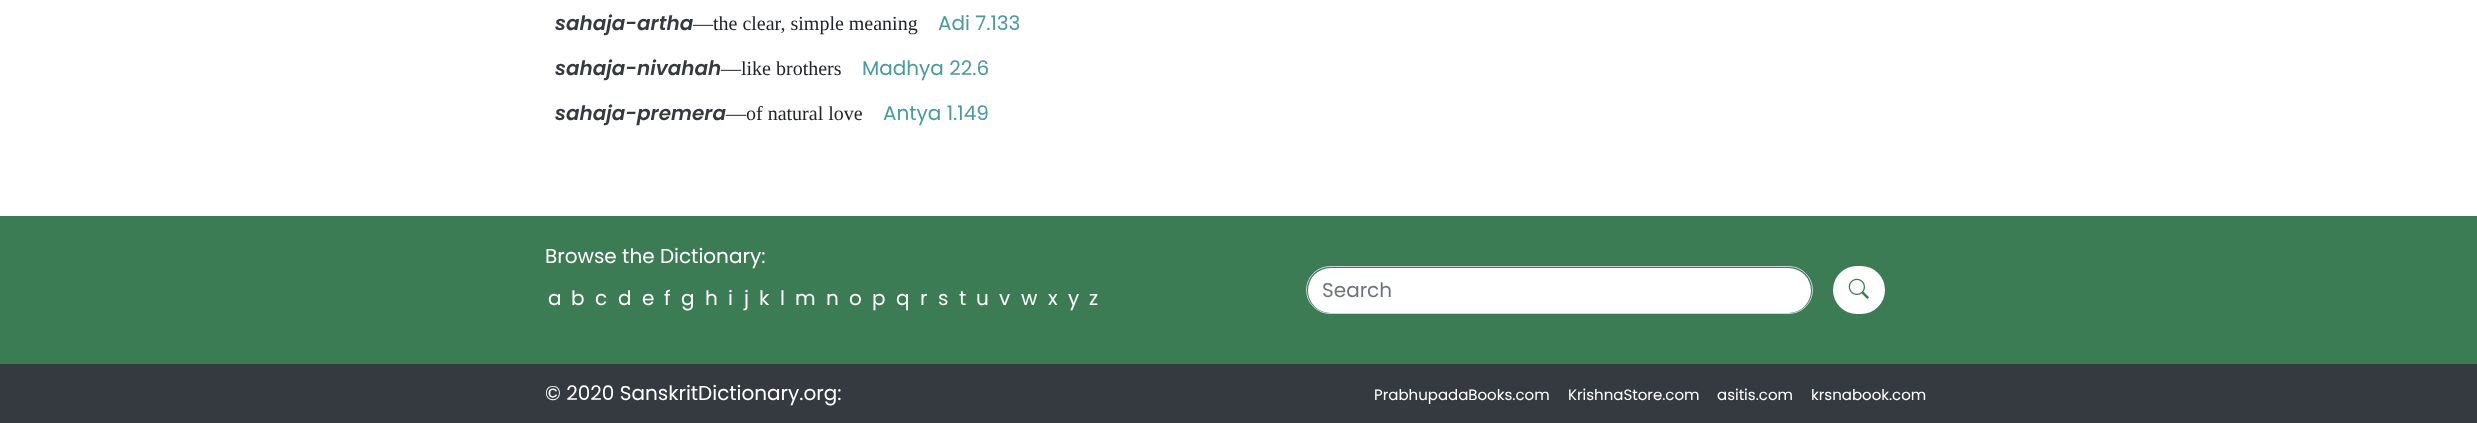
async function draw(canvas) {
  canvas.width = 2477
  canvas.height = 423
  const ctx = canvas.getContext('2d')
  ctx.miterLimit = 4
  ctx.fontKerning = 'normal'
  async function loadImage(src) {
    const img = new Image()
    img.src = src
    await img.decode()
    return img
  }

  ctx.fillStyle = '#fff'
  ctx.fillRect(0, 0, 2477, 423)
  ctx.font = 'italic 600 20px Poppins'
  ctx.fillStyle = '#343a40'
  ctx.fillText('sahaja-artha', 555, 30)
  ctx.font = '20px Liberation Serif'
  ctx.fillStyle = '#212529'
  ctx.fillText('—the clear, simple meaning', 693, 30)
  ctx.font = '20px Poppins'
  ctx.fillStyle = '#4a9aa1'
  ctx.fillText('Adi 7.133', 938, 30)
  ctx.font = 'italic 600 20px Poppins'
  ctx.fillStyle = '#343a40'
  ctx.fillText('sahaja-nivahah', 555, 75)
  ctx.font = '20px Liberation Serif'
  ctx.fillStyle = '#212529'
  ctx.fillText('—like brothers', 721, 75)
  ctx.font = '20px Poppins'
  ctx.fillStyle = '#4a9aa1'
  ctx.fillText('Madhya 22.6', 862, 75)
  ctx.font = 'italic 600 20px Poppins'
  ctx.fillStyle = '#343a40'
  ctx.fillText('sahaja-premera', 555, 120)
  ctx.font = '20px Liberation Serif'
  ctx.fillStyle = '#212529'
  ctx.fillText('—of natural love', 726, 120)
  ctx.font = '20px Poppins'
  ctx.fillStyle = '#4a9aa1'
  ctx.fillText('Antya 1.149', 883, 120)
  ctx.fillStyle = '#3b7c55'
  ctx.fillRect(0, 216, 2477, 148)
  ctx.fillStyle = '#fff'
  ctx.fillText('Browse the Dictionary:', 545, 263)
  ctx.fillText('a', 548, 305)
  ctx.fillText('b', 571, 305)
  ctx.fillText('c', 595, 305)
  ctx.fillText('d', 618, 305)
  ctx.fillText('e', 642, 305)
  ctx.fillText('f', 664, 305)
  ctx.fillText('g', 681, 305)
  ctx.fillText('h', 705, 305)
  ctx.fillText('i', 728, 305)
  ctx.fillText('j', 744, 305)
  ctx.fillText('k', 759, 305)
  ctx.fillText('l', 780, 305)
  ctx.fillText('m', 795, 305)
  ctx.fillText('n', 826, 305)
  ctx.fillText('o', 849, 305)
  ctx.fillText('p', 872, 305)
  ctx.fillText('q', 896, 305)
  ctx.fillText('r', 920, 305)
  ctx.fillText('s', 938, 305)
  ctx.fillText('t', 959, 305)
  ctx.fillText('u', 976, 305)
  ctx.fillText('v', 999, 305)
  ctx.fillText('w', 1021, 305)
  ctx.fillText('x', 1048, 305)
  ctx.fillText('y', 1068, 305)
  ctx.fillText('z', 1089, 305)
  ctx.beginPath()
  ctx.roundRect(1308, 268, 503, 45, 22.5)
  ctx.fill()
  ctx.beginPath()
  ctx.roundRect(1306.5, 266.5, 506, 47, 23.5)
  ctx.strokeStyle = '#ced4da'
  ctx.stroke()
  ctx.fillStyle = '#6c757d'
  ctx.fillText('Search', 1322, 297)
  ctx.fillStyle = '#fff'
  ctx.beginPath()
  ctx.roundRect(1833, 266, 52, 48, 24)
  ctx.fill()
  ctx.drawImage(await loadImage('image0.png'), 1848, 278, 21, 21)
  ctx.fillStyle = '#343a40'
  ctx.fillRect(0, 364, 2477, 59)
  ctx.fillStyle = '#fff'
  ctx.fillText('© 2020 SanskritDictionary.org:', 545, 400)
  ctx.font = '15px Poppins'
  ctx.fillText('PrabhupadaBooks.com', 1374, 400)
  ctx.fillText('KrishnaStore.com', 1568, 400)
  ctx.fillText('asitis.com', 1717, 400)
  ctx.fillText('krsnabook.com', 1811, 400)
}

draw(document.querySelector('canvas'))
